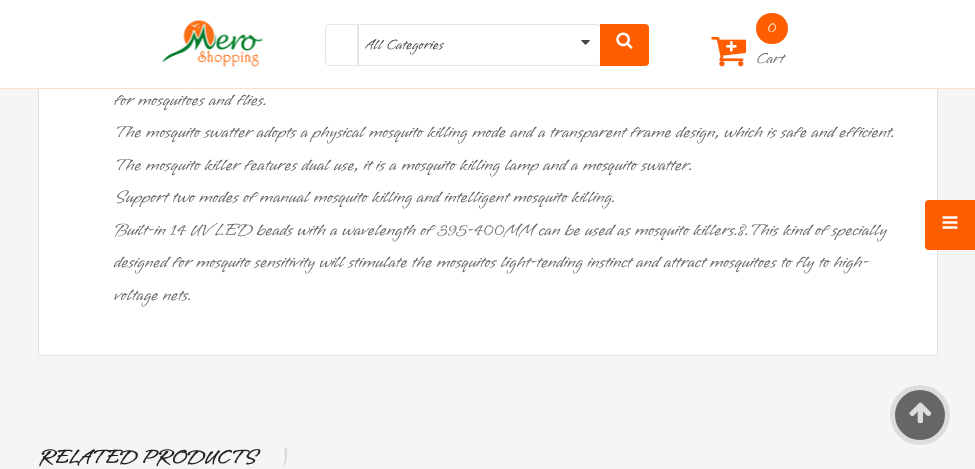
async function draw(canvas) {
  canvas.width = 975
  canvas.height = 469
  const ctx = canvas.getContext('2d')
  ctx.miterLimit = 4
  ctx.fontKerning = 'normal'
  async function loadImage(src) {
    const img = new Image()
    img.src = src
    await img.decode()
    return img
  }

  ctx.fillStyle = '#f5f5f5'
  ctx.fillRect(0, 0, 975, 469)
  ctx.fillStyle = '#fff'
  ctx.fillRect(39, 89, 898, 266)
  ctx.strokeStyle = '#e3e1e1'
  ctx.strokeRect(38.5, -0.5, 899, 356)
  ctx.fillRect(0, 0, 975, 88)
  ctx.fillStyle = '#fcdecd'
  ctx.fillRect(0, 88, 975, 1)
  ctx.drawImage(await loadImage('image0.png'), 162, 20, 101, 48)
  ctx.beginPath()
  ctx.roundRect(325.5, 24.5, 32, 41, [4.5, 0, 0, 4.5])
  ctx.strokeStyle = '#e6e6e6'
  ctx.stroke()
  ctx.beginPath()
  ctx.roundRect(358.5, 24.5, 242, 41, [0, 3.5, 3.5, 0])
  ctx.strokeStyle = '#e5e5e5'
  ctx.stroke()
  ctx.save()
  ctx.beginPath()
  ctx.rect(365, 26, 229, 38)
  ctx.clip()
  ctx.font = '15px Vujahday Script'
  ctx.fillStyle = '#3d3d3d'
  ctx.fillText('All Categories', 365, 49)
  ctx.restore()
  ctx.drawImage(await loadImage('image1.png'), 581, 40, 9, 5)
  ctx.fillStyle = '#ff5e00'
  ctx.beginPath()
  ctx.roundRect(600, 24, 49, 42, [0, 4, 4, 0])
  ctx.fill()
  ctx.drawImage(await loadImage('image2.png'), 616, 32, 17, 17)
  ctx.drawImage(await loadImage('image3.png'), 711, 36, 36, 31)
  ctx.beginPath()
  ctx.roundRect(756, 13, 32, 31, 15.5)
  ctx.fill()
  ctx.font = '15px Vujahday Script'
  ctx.fillStyle = '#fff'
  ctx.fillText('0', 767, 32)
  ctx.font = '16px Vujahday Script'
  ctx.fillStyle = '#666'
  ctx.fillText('Cart', 756, 63)
  ctx.fillStyle = '#ff5e00'
  ctx.beginPath()
  ctx.roundRect(925, 200, 50, 50, [4, 0, 0, 4])
  ctx.fill()
  ctx.drawImage(await loadImage('image4.png'), 942, 216, 16, 13)
  ctx.font = '17.5px Vujahday Script'
  ctx.fillStyle = '#666'
  ctx.fillText('for mosquitoes and flies.', 114, 105)
  ctx.fillText('The mosquito swatter adopts a physical mosquito killing mode and a transparent frame design, which is safe and efficient.', 114, 137)
  ctx.fillText('The mosquito killer features dual use, it is a mosquito killing lamp and a mosquito swatter.', 114, 170)
  ctx.fillText('Support two modes of manual mosquito killing and intelligent mosquito killing.', 114, 202)
  ctx.fillText('Built-in 14 UV LED beads with a wavelength of 395-400MM can be used as mosquito killers.8.This kind of specially', 114, 235)
  ctx.fillText('designed for mosquito sensitivity will stimulate the mosquitos light-tending instinct and attract mosquitoes to fly to high-', 114, 267)
  ctx.fillText('voltage nets.', 114, 300)
  ctx.font = 'bold 20px Vujahday Script'
  ctx.fillStyle = '#222'
  ctx.fillText('RELATED PRODUCTS', 38, 463)
  ctx.fillStyle = '#d8d8d8'
  ctx.fillText('|', 282, 462)
  ctx.fillStyle = '#666'
  ctx.beginPath()
  ctx.arc(920, 415, 27.5, 0, 2 * Math.PI)
  ctx.fill()
  ctx.strokeStyle = '#ddd'
  ctx.lineWidth = 5
  ctx.stroke()
  ctx.drawImage(await loadImage('image5.png'), 909, 402, 23, 22)
}

draw(document.querySelector('canvas'))
